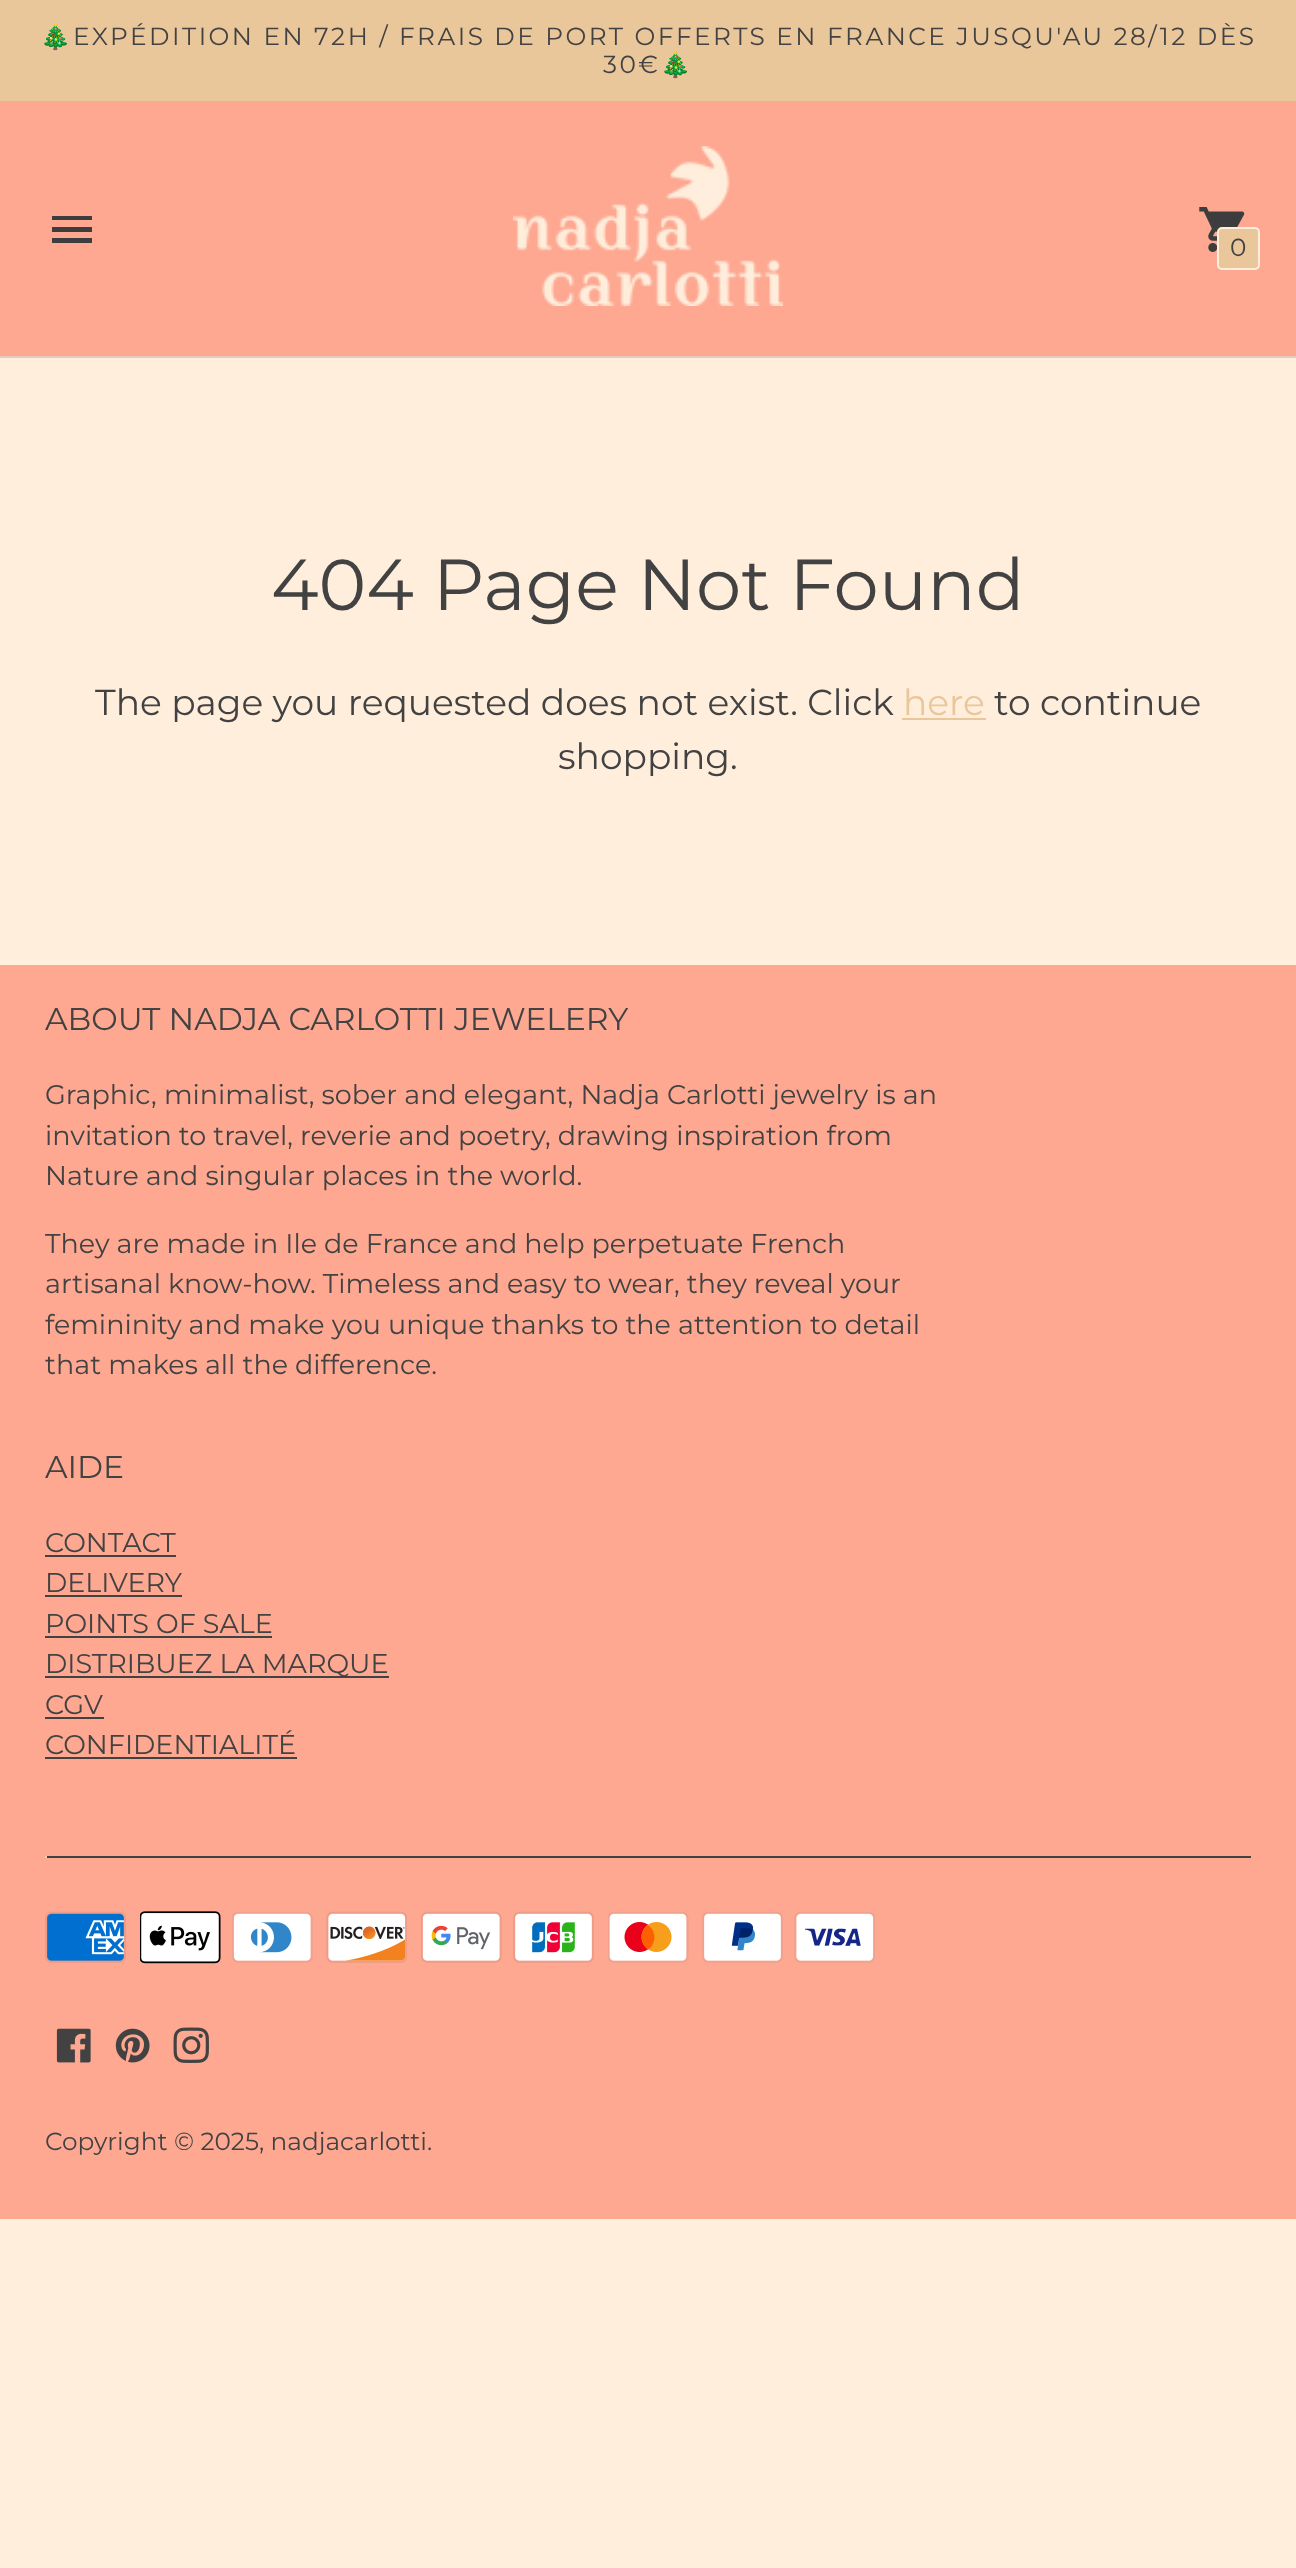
async function draw(canvas) {
  canvas.width = 1296
  canvas.height = 2568
  const ctx = canvas.getContext('2d')
  ctx.miterLimit = 4
  ctx.fontKerning = 'normal'
  async function loadImage(src) {
    const img = new Image()
    img.src = src
    await img.decode()
    return img
  }

  ctx.fillStyle = '#ffeedc'
  ctx.fillRect(0, 0, 1296, 2568)
  ctx.fillStyle = '#eac69b'
  ctx.fillRect(0, 0, 1296, 101)
  ctx.letterSpacing = '2.48px'
  ctx.font = '24.75px Noto Color Emoji'
  ctx.fillStyle = '#424242'
  ctx.fillText('🎄', 40, 45)
  ctx.font = '24.75px Montserrat'
  ctx.fillText('EXPÉDITION EN 72H / FRAIS DE PORT OFFERTS EN FRANCE JUSQU\'AU 28/12 DÈS', 73, 45)
  ctx.fillText('30€', 603, 73)
  ctx.font = '24.75px Noto Color Emoji'
  ctx.fillText('🎄', 660, 73)
  ctx.fillStyle = '#fea892'
  ctx.fillRect(0, 101, 1296, 255)
  ctx.fillStyle = '#e4cdbc'
  ctx.fillRect(0, 356, 1296, 2)
  ctx.fillStyle = '#3d3d3d'
  ctx.beginPath()
  ctx.moveTo(52, 243)
  ctx.lineTo(92, 243)
  ctx.lineTo(92, 238)
  ctx.lineTo(52, 238)
  ctx.closePath()
  ctx.moveTo(52, 232)
  ctx.lineTo(92, 232)
  ctx.lineTo(92, 227)
  ctx.lineTo(52, 227)
  ctx.closePath()
  ctx.moveTo(52, 216)
  ctx.lineTo(52, 220)
  ctx.lineTo(92, 220)
  ctx.lineTo(92, 216)
  ctx.closePath()
  ctx.fill()
  ctx.drawImage(await loadImage('image0.png'), 513, 146, 270, 160)
  ctx.drawImage(await loadImage('image1.png'), 1199, 207, 46, 45)
  ctx.fillStyle = '#eac69b'
  ctx.beginPath()
  ctx.roundRect(1218, 228, 41, 41, 4)
  ctx.fill()
  ctx.strokeStyle = '#ffeedc'
  ctx.lineWidth = 2
  ctx.stroke()
  ctx.letterSpacing = '0px'
  ctx.font = '24.75px Montserrat'
  ctx.fillStyle = '#424242'
  ctx.fillText('0', 1230, 256)
  ctx.font = '72px Montserrat'
  ctx.fillText('404 Page Not Found', 271, 610)
  ctx.font = '36px Montserrat'
  ctx.fillText('The page you requested does not exist. Click', 95, 715)
  ctx.fillStyle = '#eac69b'
  ctx.fillText('here', 903, 715)
  ctx.fillRect(902, 718, 84, 2)
  ctx.fillStyle = '#424242'
  ctx.fillText('to continue', 994, 715)
  ctx.fillText('shopping.', 558, 769)
  ctx.fillStyle = '#fea892'
  ctx.fillRect(0, 965, 1296, 1254)
  ctx.font = '31.5px Montserrat'
  ctx.fillStyle = '#424242'
  ctx.fillText('ABOUT NADJA CARLOTTI JEWELERY', 45, 1030)
  ctx.font = '27px Montserrat'
  ctx.fillText('Graphic, minimalist, sober and elegant, Nadja Carlotti jewelry is an', 45, 1104)
  ctx.fillText('invitation to travel, reverie and poetry, drawing inspiration from', 45, 1145)
  ctx.fillText('Nature and singular places in the world.', 45, 1185)
  ctx.fillText('They are made in Ile de France and help perpetuate French', 45, 1253)
  ctx.fillText('artisanal know-how. Timeless and easy to wear, they reveal your', 45, 1293)
  ctx.fillText('femininity and make you unique thanks to the attention to detail', 45, 1334)
  ctx.fillText('that makes all the difference.', 45, 1374)
  ctx.font = '31.5px Montserrat'
  ctx.fillText('AIDE', 45, 1478)
  ctx.font = '27px Montserrat'
  ctx.fillText('CONTACT', 45, 1552)
  ctx.fillRect(45, 1555, 131, 2)
  ctx.fillText('DELIVERY', 45, 1592)
  ctx.fillRect(45, 1595, 137, 2)
  ctx.fillText('POINTS OF SALE', 45, 1633)
  ctx.fillRect(45, 1636, 227, 2)
  ctx.fillRect(45, 1676, 344, 2)
  ctx.fillText('DISTRIBUEZ LA MARQUE', 45, 1673)
  ctx.fillText('CGV', 45, 1714)
  ctx.fillRect(45, 1717, 59, 2)
  ctx.fillText('CONFIDENTIALITÉ', 45, 1754)
  ctx.fillRect(45, 1757, 252, 2)
  ctx.fillRect(45, 1856, 1206, 2)
  ctx.fillStyle = '#f3cfb3'
  ctx.fillRect(45, 1856, 2, 2)
  ctx.drawImage(await loadImage('image2.png'), 45, 1911, 81, 52)
  ctx.drawImage(await loadImage('image3.png'), 140, 1911, 81, 53)
  ctx.drawImage(await loadImage('image4.png'), 232, 1911, 81, 52)
  ctx.drawImage(await loadImage('image5.png'), 326, 1911, 81, 52)
  ctx.drawImage(await loadImage('image6.png'), 421, 1911, 81, 52)
  ctx.drawImage(await loadImage('image7.png'), 513, 1911, 81, 52)
  ctx.drawImage(await loadImage('image8.png'), 608, 1911, 81, 52)
  ctx.drawImage(await loadImage('image9.png'), 702, 1911, 81, 52)
  ctx.drawImage(await loadImage('image10.png'), 794, 1911, 81, 52)
  ctx.drawImage(await loadImage('image11.png'), 56, 2028, 35, 35)
  ctx.drawImage(await loadImage('image12.png'), 115, 2028, 35, 35)
  ctx.drawImage(await loadImage('image13.png'), 173, 2027, 36, 36)
  ctx.font = '24.75px Montserrat'
  ctx.fillStyle = '#424242'
  ctx.fillText('Copyright © 2025, nadjacarlotti.', 45, 2150)
}

draw(document.querySelector('canvas'))
